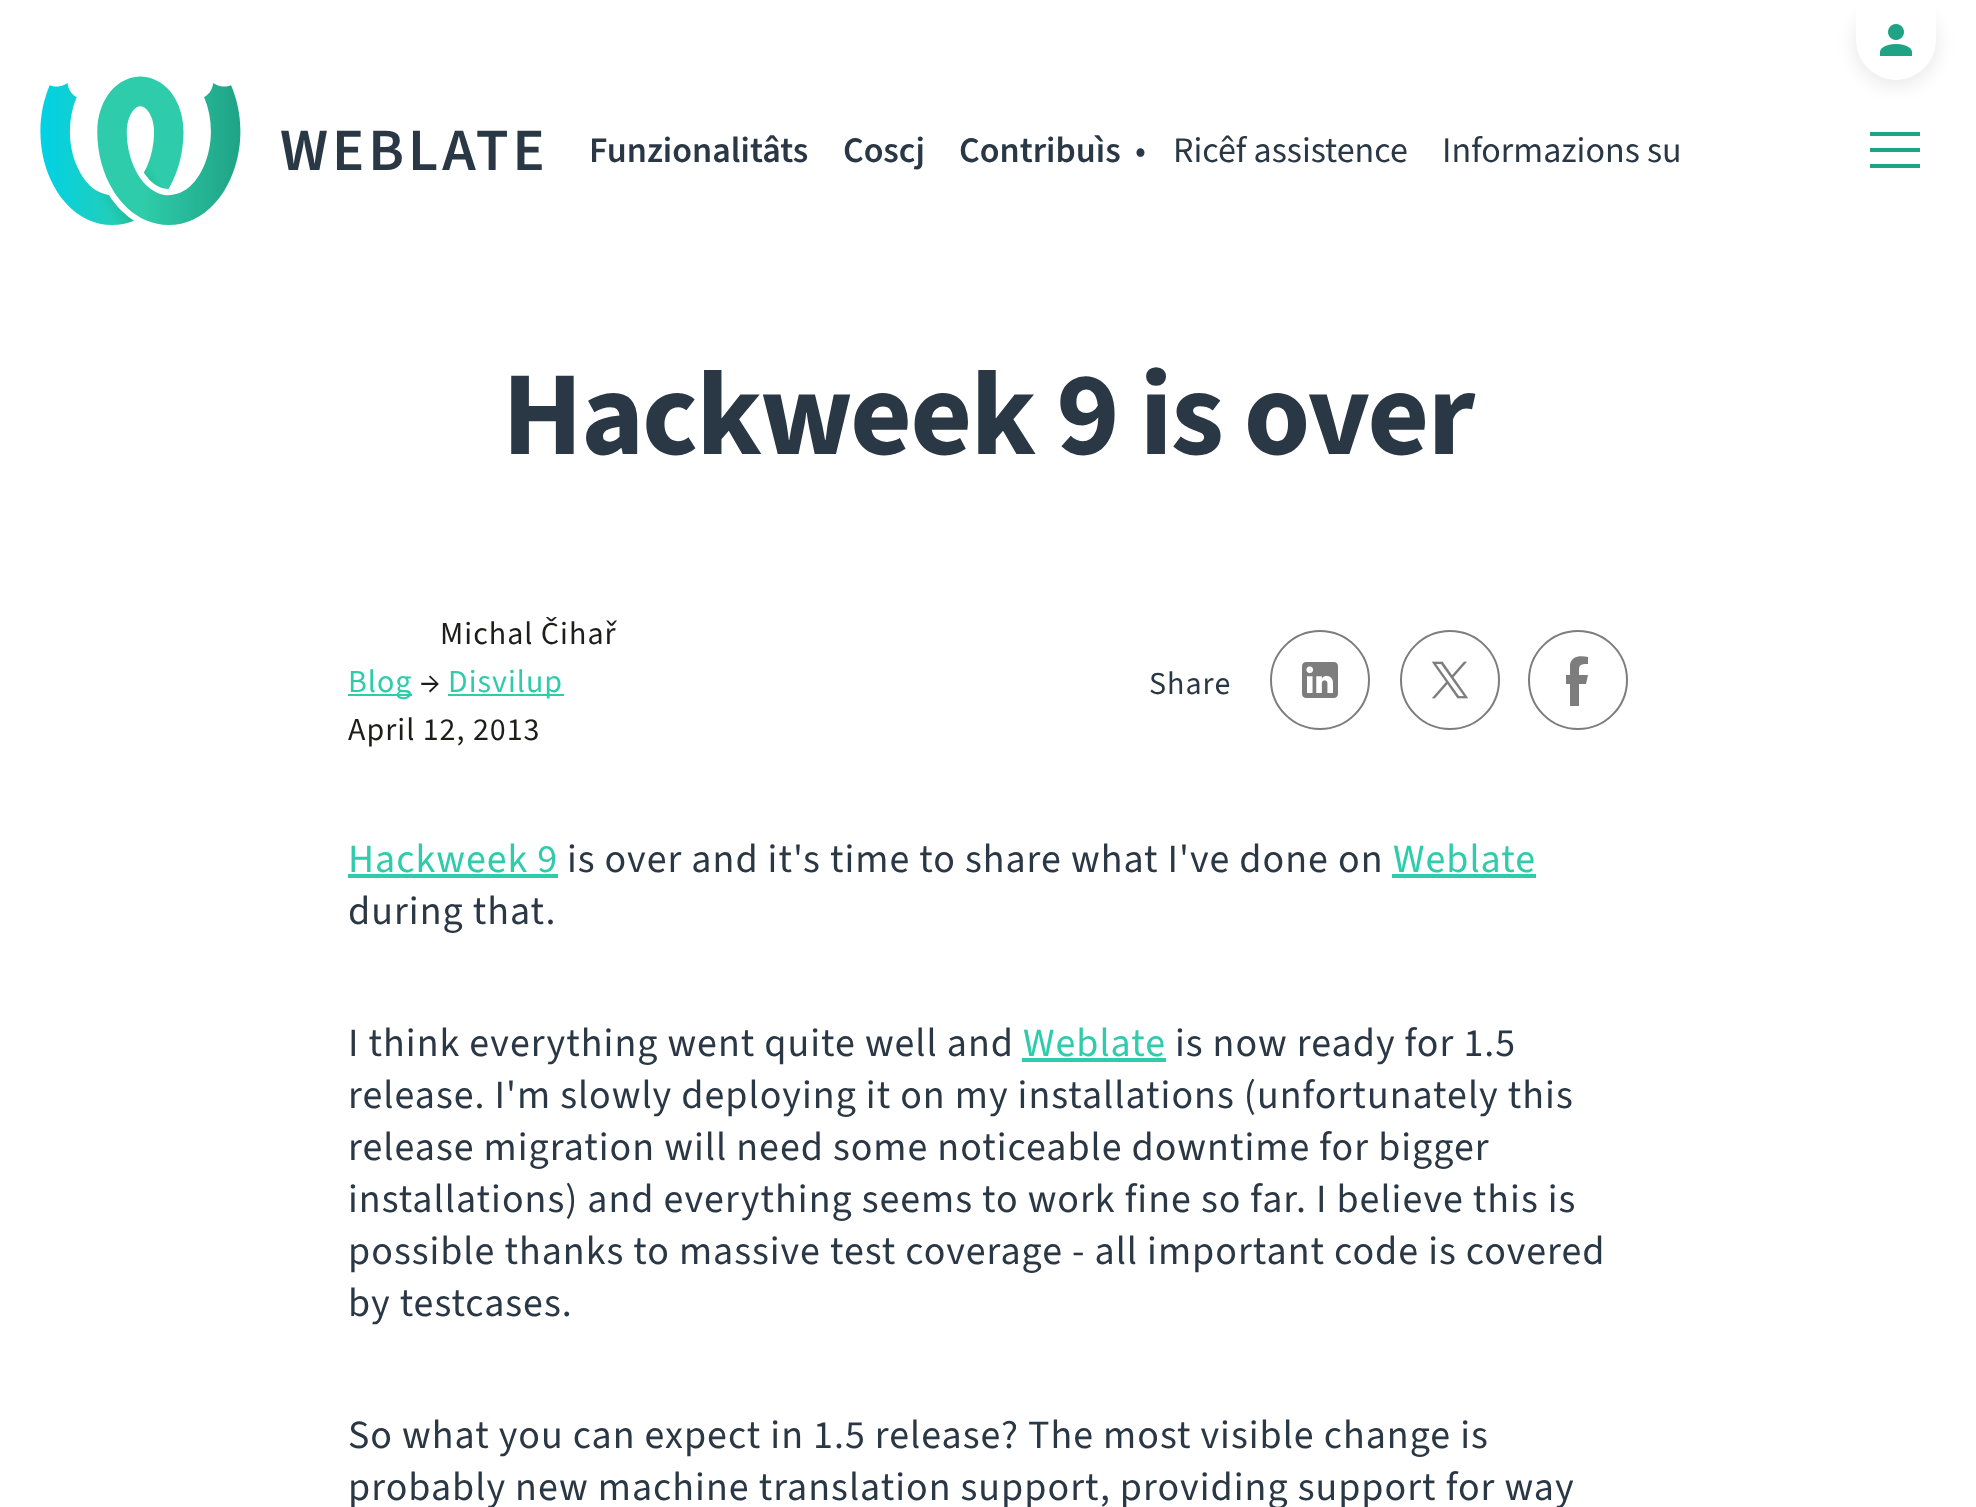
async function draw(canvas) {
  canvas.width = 1976
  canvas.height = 1507
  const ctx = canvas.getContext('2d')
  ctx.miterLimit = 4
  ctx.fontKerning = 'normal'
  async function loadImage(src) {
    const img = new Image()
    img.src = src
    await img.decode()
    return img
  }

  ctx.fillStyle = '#fff'
  ctx.fillRect(0, 0, 1976, 1507)
  ctx.fillStyle = '#0000001a'
  ctx.filter = 'blur(10px)'
  ctx.beginPath()
  ctx.roundRect(1856, 4, 80, 80, 40)
  ctx.fill()
  ctx.filter = 'none'
  ctx.fillStyle = '#fff'
  ctx.beginPath()
  ctx.roundRect(1856, 0, 80, 80, [0, 0, 40, 40])
  ctx.fill()
  ctx.drawImage(await loadImage('image0.png'), 1880, 24, 32, 32)
  ctx.drawImage(await loadImage('image1.png'), 40, 76, 201, 149)
  ctx.letterSpacing = '4px'
  ctx.font = '600 60px "Source Sans 3"'
  ctx.fillStyle = '#2a3744'
  ctx.fillText('WEBLATE', 280, 170)
  ctx.letterSpacing = '0px'
  ctx.font = '600 36px "Source Sans 3"'
  ctx.fillText('Funzionalitâts', 589, 162)
  ctx.fillText('Coscj', 843, 162)
  ctx.fillText('Contribuìs', 959, 162)
  ctx.font = '36px "Source Sans 3"'
  ctx.fillText('•', 1135, 162)
  ctx.fillText('Ricêf assistence', 1173, 162)
  ctx.fillText('Informazions su', 1442, 162)
  ctx.fillStyle = '#1fa385'
  ctx.fillRect(1870, 132, 50, 4)
  ctx.fillRect(1870, 148, 50, 4)
  ctx.fillRect(1870, 164, 50, 4)
  ctx.letterSpacing = '-2px'
  ctx.font = 'bold 120px "Source Sans 3"'
  ctx.fillStyle = '#2a3744'
  ctx.fillText('Hackweek 9 is over', 502, 454)
  ctx.letterSpacing = '1px'
  ctx.font = '32px "Source Sans 3"'
  ctx.fillStyle = '#1d1d1b'
  ctx.fillText('Michal Čihař', 440, 644)
  ctx.fillStyle = '#2eccaa'
  ctx.fillRect(348, 694, 64, 2)
  ctx.fillText('Blog', 348, 692)
  ctx.fillStyle = '#1d1d1b'
  ctx.fillText('→', 420, 692)
  ctx.fillStyle = '#2eccaa'
  ctx.fillRect(448, 694, 116, 2)
  ctx.fillText('Disvilup', 448, 692)
  ctx.fillStyle = '#1d1d1b'
  ctx.fillText('April 12, 2013', 348, 740)
  ctx.fillStyle = '#2a3744'
  ctx.fillText('Share', 1149, 694)
  ctx.drawImage(await loadImage('image2.png'), 1302, 662, 36, 36)
  ctx.beginPath()
  ctx.arc(1320, 680, 49, 0, 2 * Math.PI)
  ctx.strokeStyle = '#7d7d7d'
  ctx.lineWidth = 2
  ctx.stroke()
  ctx.drawImage(await loadImage('image3.png'), 1431, 661, 38, 38)
  ctx.beginPath()
  ctx.arc(1450, 680, 49, 0, 2 * Math.PI)
  ctx.stroke()
  ctx.save()
  ctx.beginPath()
  ctx.rect(1566, 656, 26, 50)
  ctx.clip()
  ctx.fillStyle = '#7d7d7d'
  ctx.beginPath()
  ctx.moveTo(1586, 684)
  ctx.lineTo(1588, 675)
  ctx.lineTo(1579, 675)
  ctx.bezierCurveTo(1579, 666, 1578, 664, 1588, 664)
  ctx.lineTo(1588, 657)
  ctx.bezierCurveTo(1580, 655, 1571, 656, 1570, 665)
  ctx.lineTo(1570, 675)
  ctx.lineTo(1562, 675)
  ctx.lineTo(1562, 684)
  ctx.lineTo(1570, 684)
  ctx.lineTo(1570, 706)
  ctx.bezierCurveTo(1573, 706, 1576, 706, 1579, 706)
  ctx.lineTo(1579, 684)
  ctx.closePath()
  ctx.fill()
  ctx.restore()
  ctx.beginPath()
  ctx.arc(1578, 680, 49, 0, 2 * Math.PI)
  ctx.stroke()
  ctx.font = '40px "Source Sans 3"'
  ctx.fillStyle = '#2eccaa'
  ctx.fillText('Hackweek 9', 348, 872)
  ctx.fillRect(348, 874, 210, 4)
  ctx.fillStyle = '#2a3744'
  ctx.fillText('is over and it\'s time to share what I\'ve done on', 567, 872)
  ctx.fillStyle = '#2eccaa'
  ctx.fillText('Weblate', 1393, 872)
  ctx.fillRect(1392, 874, 144, 4)
  ctx.fillStyle = '#2a3744'
  ctx.fillText('during that.', 348, 924)
  ctx.fillText('I think everything went quite well and', 348, 1056)
  ctx.fillStyle = '#2eccaa'
  ctx.fillText('Weblate', 1023, 1056)
  ctx.fillRect(1022, 1058, 144, 4)
  ctx.fillStyle = '#2a3744'
  ctx.fillText('is now ready for 1.5', 1175, 1056)
  ctx.fillText('release. I\'m slowly deploying it on my installations (unfortunately this', 348, 1108)
  ctx.fillText('release migration will need some noticeable downtime for bigger', 348, 1160)
  ctx.fillText('installations) and everything seems to work fine so far. I believe this is', 348, 1212)
  ctx.fillText('possible thanks to massive test coverage - all important code is covered', 348, 1264)
  ctx.fillText('by testcases.', 348, 1316)
  ctx.fillText('So what you can expect in 1.5 release? The most visible change is', 348, 1448)
  ctx.fillText('probably new machine translation support, providing support for way', 348, 1500)
}

draw(document.querySelector('canvas'))
